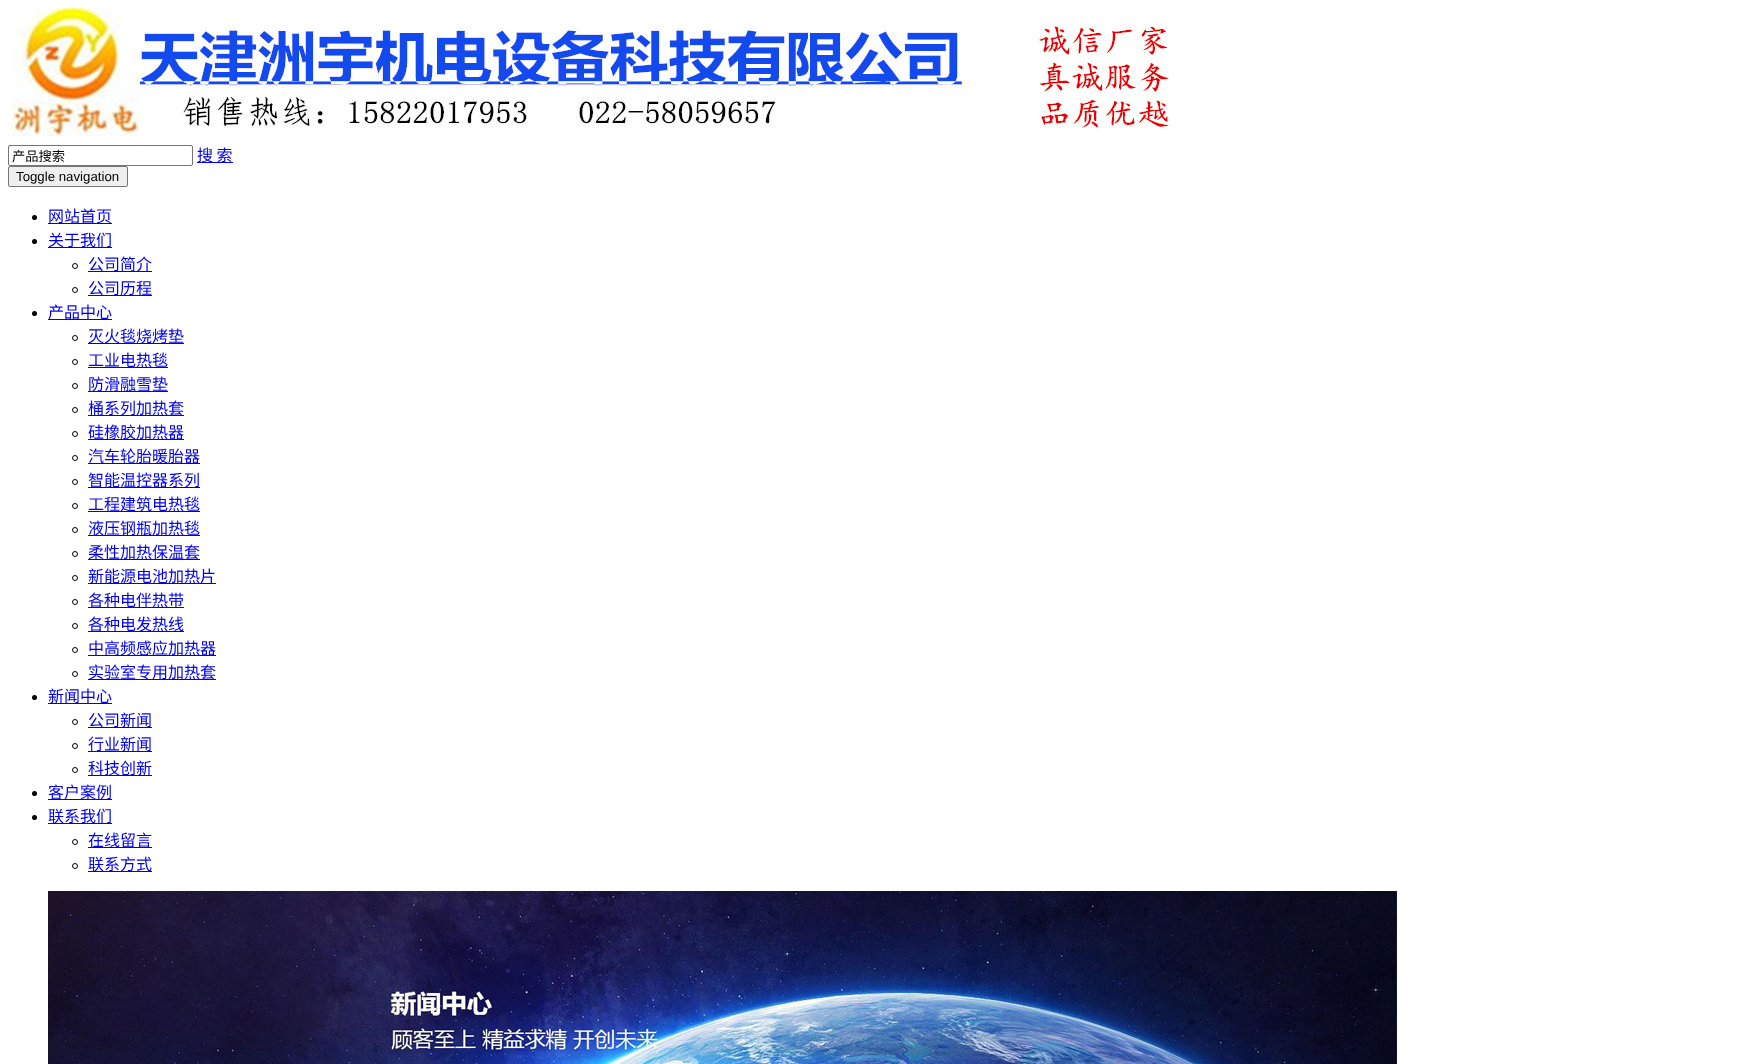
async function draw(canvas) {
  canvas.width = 1737
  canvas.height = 1064
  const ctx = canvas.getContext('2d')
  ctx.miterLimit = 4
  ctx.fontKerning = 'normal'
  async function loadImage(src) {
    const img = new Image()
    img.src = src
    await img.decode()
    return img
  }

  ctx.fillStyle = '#fff'
  ctx.fillRect(0, 0, 1737, 1064)
  ctx.drawImage(await loadImage('image0.png'), 8, 8, 1164, 128)
  ctx.beginPath()
  ctx.roundRect(8.5, 145.5, 184, 20, 1.5)
  ctx.strokeStyle = '#767676'
  ctx.stroke()
  ctx.font = '13.25px Noto Sans CJK SC'
  ctx.fillStyle = '#000'
  ctx.fillText('产品搜索', 12, 161)
  ctx.fillStyle = '#00e'
  ctx.fillRect(197, 162, 36, 1)
  ctx.font = '16px Noto Sans CJK SC'
  ctx.fillText('搜 索', 197, 161)
  ctx.fillStyle = '#efefef'
  ctx.beginPath()
  ctx.roundRect(8.5, 166.5, 119, 20, 1.5)
  ctx.fill()
  ctx.stroke()
  ctx.font = '13.25px Liberation Sans'
  ctx.fillStyle = '#000'
  ctx.fillText('Toggle navigation', 16, 181)
  ctx.beginPath()
  ctx.arc(34.5, 217.5, 2.5, 0, 2 * Math.PI)
  ctx.fill()
  ctx.fillStyle = '#00e'
  ctx.fillRect(48, 223, 64, 1)
  ctx.font = '16px Noto Sans CJK SC'
  ctx.fillText('网站首页', 48, 222)
  ctx.fillStyle = '#000'
  ctx.beginPath()
  ctx.arc(34.5, 241.5, 2.5, 0, 2 * Math.PI)
  ctx.fill()
  ctx.fillStyle = '#00e'
  ctx.fillRect(48, 247, 64, 1)
  ctx.fillText('关于我们', 48, 246)
  ctx.beginPath()
  ctx.arc(75, 266, 2.5, 0, 2 * Math.PI)
  ctx.strokeStyle = '#000'
  ctx.stroke()
  ctx.fillRect(88, 271, 64, 1)
  ctx.fillText('公司简介', 88, 270)
  ctx.beginPath()
  ctx.arc(75, 290, 2.5, 0, 2 * Math.PI)
  ctx.stroke()
  ctx.fillRect(88, 295, 64, 1)
  ctx.fillText('公司历程', 88, 294)
  ctx.fillStyle = '#000'
  ctx.beginPath()
  ctx.arc(34.5, 313.5, 2.5, 0, 2 * Math.PI)
  ctx.fill()
  ctx.fillStyle = '#00e'
  ctx.fillRect(48, 319, 64, 1)
  ctx.fillText('产品中心', 48, 318)
  ctx.beginPath()
  ctx.arc(75, 338, 2.5, 0, 2 * Math.PI)
  ctx.stroke()
  ctx.fillRect(88, 343, 96, 1)
  ctx.fillText('灭火毯烧烤垫', 88, 342)
  ctx.beginPath()
  ctx.arc(75, 362, 2.5, 0, 2 * Math.PI)
  ctx.stroke()
  ctx.fillRect(88, 367, 80, 1)
  ctx.fillText('工业电热毯', 88, 366)
  ctx.beginPath()
  ctx.arc(75, 386, 2.5, 0, 2 * Math.PI)
  ctx.stroke()
  ctx.fillRect(88, 391, 80, 1)
  ctx.fillText('防滑融雪垫', 88, 390)
  ctx.beginPath()
  ctx.arc(75, 410, 2.5, 0, 2 * Math.PI)
  ctx.stroke()
  ctx.fillRect(88, 415, 96, 1)
  ctx.fillText('桶系列加热套', 88, 414)
  ctx.beginPath()
  ctx.arc(75, 434, 2.5, 0, 2 * Math.PI)
  ctx.stroke()
  ctx.fillRect(88, 439, 96, 1)
  ctx.fillText('硅橡胶加热器', 88, 438)
  ctx.beginPath()
  ctx.arc(75, 458, 2.5, 0, 2 * Math.PI)
  ctx.stroke()
  ctx.fillRect(88, 463, 112, 1)
  ctx.fillText('汽车轮胎暖胎器', 88, 462)
  ctx.beginPath()
  ctx.arc(75, 482, 2.5, 0, 2 * Math.PI)
  ctx.stroke()
  ctx.fillRect(88, 487, 112, 1)
  ctx.fillText('智能温控器系列', 88, 486)
  ctx.beginPath()
  ctx.arc(75, 506, 2.5, 0, 2 * Math.PI)
  ctx.stroke()
  ctx.fillRect(88, 511, 112, 1)
  ctx.fillText('工程建筑电热毯', 88, 510)
  ctx.beginPath()
  ctx.arc(75, 530, 2.5, 0, 2 * Math.PI)
  ctx.stroke()
  ctx.fillRect(88, 535, 112, 1)
  ctx.fillText('液压钢瓶加热毯', 88, 534)
  ctx.beginPath()
  ctx.arc(75, 554, 2.5, 0, 2 * Math.PI)
  ctx.stroke()
  ctx.fillRect(88, 559, 112, 1)
  ctx.fillText('柔性加热保温套', 88, 558)
  ctx.beginPath()
  ctx.arc(75, 578, 2.5, 0, 2 * Math.PI)
  ctx.stroke()
  ctx.fillRect(88, 583, 128, 1)
  ctx.fillText('新能源电池加热片', 88, 582)
  ctx.beginPath()
  ctx.arc(75, 602, 2.5, 0, 2 * Math.PI)
  ctx.stroke()
  ctx.fillRect(88, 607, 96, 1)
  ctx.fillText('各种电伴热带', 88, 606)
  ctx.beginPath()
  ctx.arc(75, 626, 2.5, 0, 2 * Math.PI)
  ctx.stroke()
  ctx.fillRect(88, 631, 96, 1)
  ctx.fillText('各种电发热线', 88, 630)
  ctx.beginPath()
  ctx.arc(75, 650, 2.5, 0, 2 * Math.PI)
  ctx.stroke()
  ctx.fillRect(88, 655, 128, 1)
  ctx.fillText('中高频感应加热器', 88, 654)
  ctx.beginPath()
  ctx.arc(75, 674, 2.5, 0, 2 * Math.PI)
  ctx.stroke()
  ctx.fillRect(88, 679, 128, 1)
  ctx.fillText('实验室专用加热套', 88, 678)
  ctx.fillStyle = '#000'
  ctx.beginPath()
  ctx.arc(34.5, 697.5, 2.5, 0, 2 * Math.PI)
  ctx.fill()
  ctx.fillStyle = '#00e'
  ctx.fillRect(48, 703, 64, 1)
  ctx.fillText('新闻中心', 48, 702)
  ctx.beginPath()
  ctx.arc(75, 722, 2.5, 0, 2 * Math.PI)
  ctx.stroke()
  ctx.fillRect(88, 727, 64, 1)
  ctx.fillText('公司新闻', 88, 726)
  ctx.beginPath()
  ctx.arc(75, 746, 2.5, 0, 2 * Math.PI)
  ctx.stroke()
  ctx.fillRect(88, 751, 64, 1)
  ctx.fillText('行业新闻', 88, 750)
  ctx.beginPath()
  ctx.arc(75, 770, 2.5, 0, 2 * Math.PI)
  ctx.stroke()
  ctx.fillRect(88, 775, 64, 1)
  ctx.fillText('科技创新', 88, 774)
  ctx.fillStyle = '#000'
  ctx.beginPath()
  ctx.arc(34.5, 793.5, 2.5, 0, 2 * Math.PI)
  ctx.fill()
  ctx.fillStyle = '#00e'
  ctx.fillRect(48, 799, 64, 1)
  ctx.fillText('客户案例', 48, 798)
  ctx.fillStyle = '#000'
  ctx.beginPath()
  ctx.arc(34.5, 817.5, 2.5, 0, 2 * Math.PI)
  ctx.fill()
  ctx.fillStyle = '#00e'
  ctx.fillRect(48, 823, 64, 1)
  ctx.fillText('联系我们', 48, 822)
  ctx.beginPath()
  ctx.arc(75, 842, 2.5, 0, 2 * Math.PI)
  ctx.stroke()
  ctx.fillRect(88, 847, 64, 1)
  ctx.fillText('在线留言', 88, 846)
  ctx.beginPath()
  ctx.arc(75, 866, 2.5, 0, 2 * Math.PI)
  ctx.stroke()
  ctx.fillRect(88, 871, 64, 1)
  ctx.fillText('联系方式', 88, 870)
  ctx.drawImage(await loadImage('image1.png'), 48, 891, 1349, 173)
}

draw(document.querySelector('canvas'))
